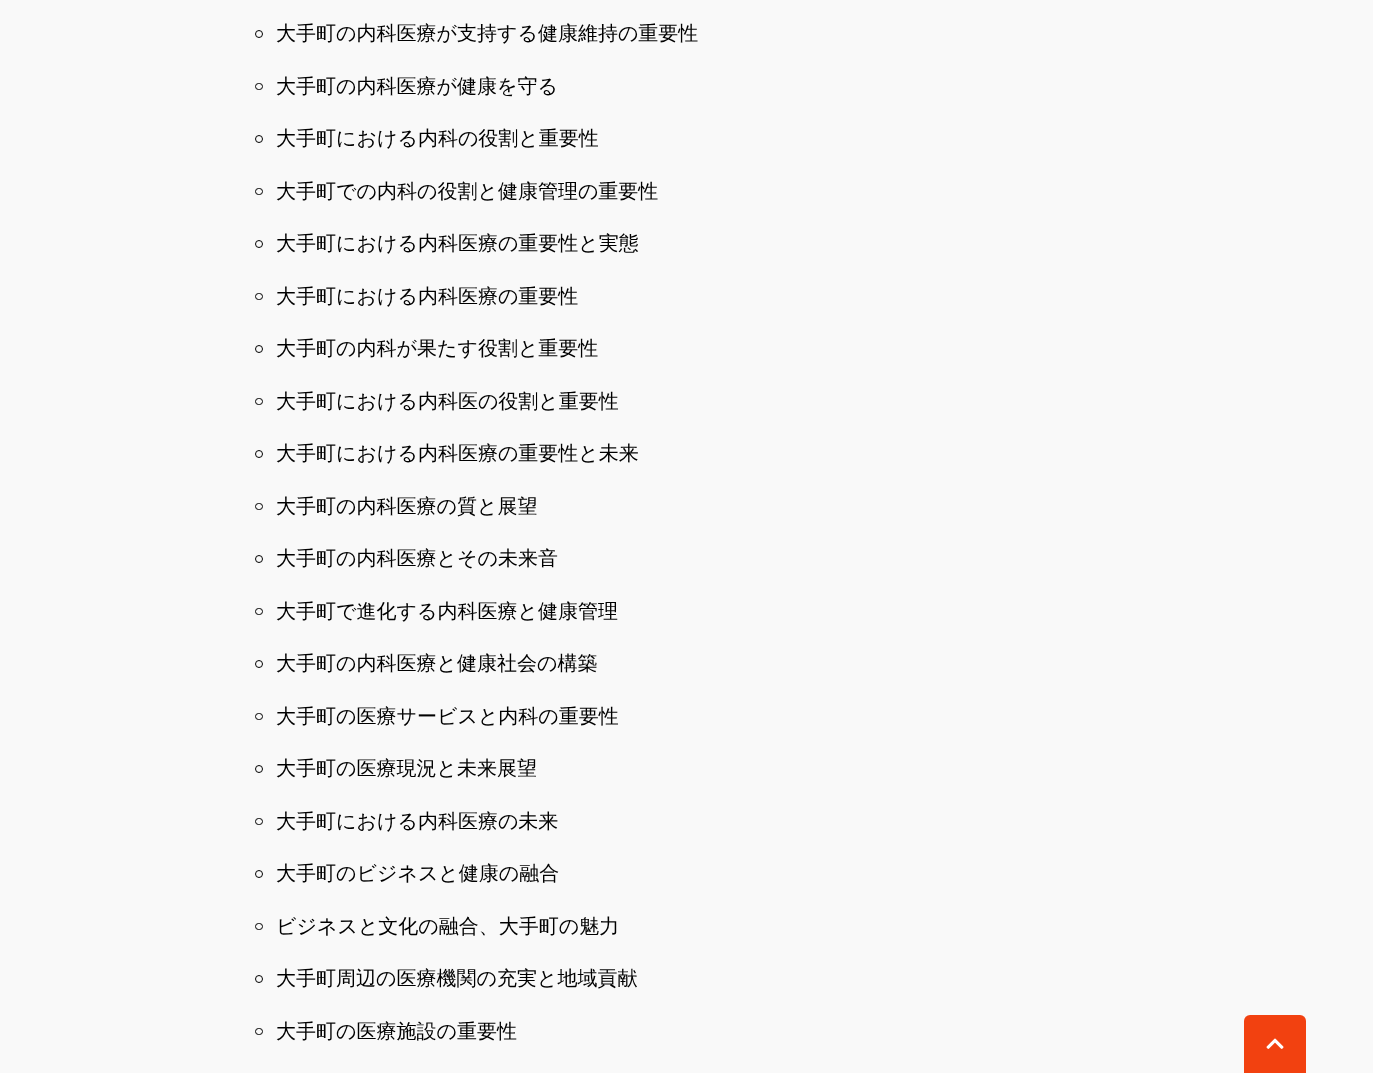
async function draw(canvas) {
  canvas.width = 1373
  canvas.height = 1073
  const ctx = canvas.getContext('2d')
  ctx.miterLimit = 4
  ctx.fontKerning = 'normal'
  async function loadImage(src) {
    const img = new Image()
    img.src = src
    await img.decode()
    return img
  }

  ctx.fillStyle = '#f9f9f9'
  ctx.fillRect(0, 0, 1373, 1073)
  ctx.beginPath()
  ctx.arc(259, 34, 3.5, 0, 2 * Math.PI)
  ctx.strokeStyle = '#000'
  ctx.stroke()
  ctx.font = '500 20px WenQuanYi Zen Hei'
  ctx.fillStyle = '#000'
  ctx.fillText('大手町の内科医療が支持する健康維持の重要性', 276, 40)
  ctx.beginPath()
  ctx.roundRect(255.5, 83.5, 7, 6, 3)
  ctx.stroke()
  ctx.fillText('大手町の内科医療が健康を守る', 276, 93)
  ctx.beginPath()
  ctx.arc(259, 139, 3.5, 0, 2 * Math.PI)
  ctx.stroke()
  ctx.fillText('大手町における内科の役割と重要性', 276, 145)
  ctx.beginPath()
  ctx.roundRect(255.5, 188.5, 7, 6, 3)
  ctx.stroke()
  ctx.fillText('大手町での内科の役割と健康管理の重要性', 276, 198)
  ctx.beginPath()
  ctx.arc(259, 244, 3.5, 0, 2 * Math.PI)
  ctx.stroke()
  ctx.fillText('大手町における内科医療の重要性と実態', 276, 250)
  ctx.beginPath()
  ctx.roundRect(255.5, 293.5, 7, 6, 3)
  ctx.stroke()
  ctx.fillText('大手町における内科医療の重要性', 276, 303)
  ctx.beginPath()
  ctx.arc(259, 349, 3.5, 0, 2 * Math.PI)
  ctx.stroke()
  ctx.fillText('大手町の内科が果たす役割と重要性', 276, 355)
  ctx.beginPath()
  ctx.roundRect(255.5, 398.5, 7, 6, 3)
  ctx.stroke()
  ctx.fillText('大手町における内科医の役割と重要性', 276, 408)
  ctx.beginPath()
  ctx.arc(259, 454, 3.5, 0, 2 * Math.PI)
  ctx.stroke()
  ctx.fillText('大手町における内科医療の重要性と未来', 276, 460)
  ctx.beginPath()
  ctx.roundRect(255.5, 503.5, 7, 6, 3)
  ctx.stroke()
  ctx.fillText('大手町の内科医療の質と展望', 276, 513)
  ctx.beginPath()
  ctx.arc(259, 559, 3.5, 0, 2 * Math.PI)
  ctx.stroke()
  ctx.fillText('大手町の内科医療とその未来音', 276, 565)
  ctx.beginPath()
  ctx.roundRect(255.5, 608.5, 7, 6, 3)
  ctx.stroke()
  ctx.fillText('大手町で進化する内科医療と健康管理', 276, 618)
  ctx.beginPath()
  ctx.arc(259, 664, 3.5, 0, 2 * Math.PI)
  ctx.stroke()
  ctx.fillText('大手町の内科医療と健康社会の構築', 276, 670)
  ctx.beginPath()
  ctx.roundRect(255.5, 713.5, 7, 6, 3)
  ctx.stroke()
  ctx.fillText('大手町の医療サービスと内科の重要性', 276, 723)
  ctx.beginPath()
  ctx.arc(259, 769, 3.5, 0, 2 * Math.PI)
  ctx.stroke()
  ctx.fillText('大手町の医療現況と未来展望', 276, 775)
  ctx.beginPath()
  ctx.roundRect(255.5, 818.5, 7, 6, 3)
  ctx.stroke()
  ctx.fillText('大手町における内科医療の未来', 276, 828)
  ctx.beginPath()
  ctx.arc(259, 874, 3.5, 0, 2 * Math.PI)
  ctx.stroke()
  ctx.fillText('大手町のビジネスと健康の融合', 276, 880)
  ctx.beginPath()
  ctx.roundRect(255.5, 923.5, 7, 6, 3)
  ctx.stroke()
  ctx.fillText('ビジネスと文化の融合、大手町の魅力', 276, 933)
  ctx.beginPath()
  ctx.arc(259, 979, 3.5, 0, 2 * Math.PI)
  ctx.stroke()
  ctx.fillText('大手町周辺の医療機関の充実と地域貢献', 276, 985)
  ctx.beginPath()
  ctx.roundRect(255.5, 1028.5, 7, 6, 3)
  ctx.stroke()
  ctx.fillText('大手町の医療施設の重要性', 276, 1038)
  ctx.fillStyle = '#f24110'
  ctx.beginPath()
  ctx.roundRect(1244, 1015, 62, 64, 6)
  ctx.fill()
  ctx.drawImage(await loadImage('image0.png'), 1266, 1038, 18, 11)
}

draw(document.querySelector('canvas'))
